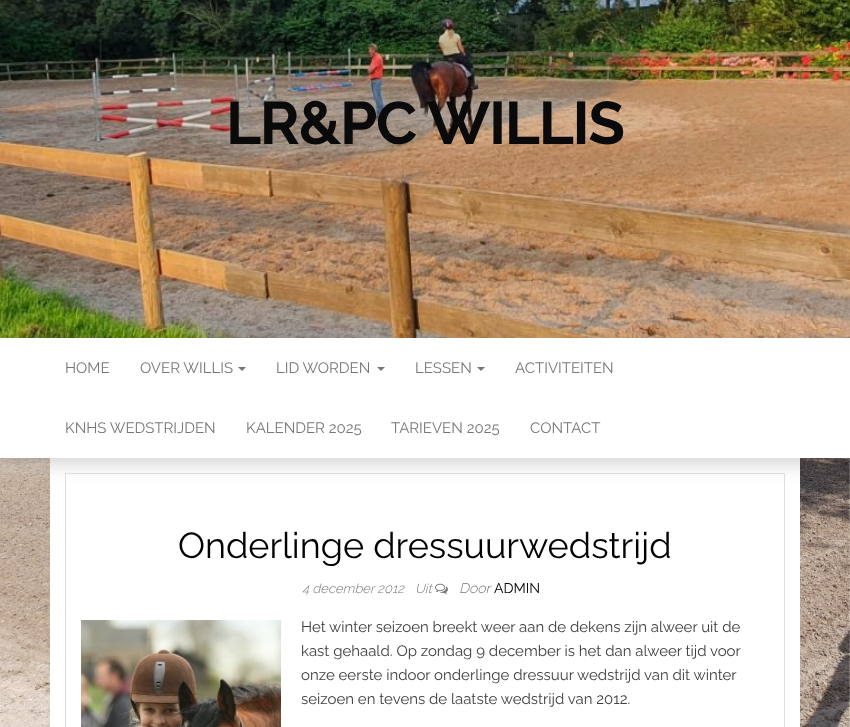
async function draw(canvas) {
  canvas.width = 850
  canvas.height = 727
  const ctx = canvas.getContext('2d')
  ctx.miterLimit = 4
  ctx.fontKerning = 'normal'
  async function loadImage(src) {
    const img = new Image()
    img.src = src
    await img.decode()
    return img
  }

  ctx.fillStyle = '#fff'
  ctx.fillRect(0, 0, 850, 727)
  ctx.drawImage(await loadImage('image0.png'), 0, 458, 850, 269)
  ctx.drawImage(await loadImage('image1.png'), 0, 0, 850, 338)
  ctx.letterSpacing = '-1.25px'
  ctx.font = 'bold 60px Raleway'
  ctx.fillStyle = '#0a0a0a'
  ctx.fillText('LR&PC WILLIS', 226, 144)
  ctx.fillStyle = '#fff'
  ctx.fillRect(50, 458, 750, 269)
  ctx.fillStyle = '#0000002b'
  ctx.filter = 'blur(9.5px)'
  ctx.beginPath()
  ctx.rect(1, 346, 848, 118)
  ctx.fill()
  ctx.filter = 'none'
  ctx.fillStyle = '#fff'
  ctx.fillRect(0, 338, 850, 120)
  ctx.letterSpacing = '0px'
  ctx.font = '15px Raleway'
  ctx.fillStyle = '#777'
  ctx.fillText('HOME', 65, 373)
  ctx.fillText('OVER WILLIS', 140, 373)
  ctx.beginPath()
  ctx.moveTo(238, 367)
  ctx.lineTo(246, 367)
  ctx.lineTo(242, 371)
  ctx.closePath()
  ctx.fill()
  ctx.fillText('LID WORDEN', 276, 373)
  ctx.beginPath()
  ctx.moveTo(377, 367)
  ctx.lineTo(385, 367)
  ctx.lineTo(381, 371)
  ctx.closePath()
  ctx.fill()
  ctx.fillText('LESSEN', 415, 373)
  ctx.beginPath()
  ctx.moveTo(477, 367)
  ctx.lineTo(485, 367)
  ctx.lineTo(481, 371)
  ctx.closePath()
  ctx.fill()
  ctx.fillText('ACTIVITEITEN', 515, 373)
  ctx.fillText('KNHS WEDSTRIJDEN', 65, 433)
  ctx.fillText('KALENDER 2025', 246, 433)
  ctx.fillText('TARIEVEN 2025', 391, 433)
  ctx.fillText('CONTACT', 530, 433)
  ctx.strokeStyle = '#ddd'
  ctx.strokeRect(65.5, 473.5, 719, 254)
  ctx.font = '36px Raleway'
  ctx.fillStyle = '#000'
  ctx.fillText('Onderlinge dressuurwedstrijd', 178, 558)
  ctx.font = 'italic 300 13px Raleway'
  ctx.fillStyle = '#777'
  ctx.fillText('4 december 2012', 302, 593)
  ctx.fillText('Uit', 415, 593)
  ctx.drawImage(await loadImage('image2.png'), 435, 583, 13, 11)
  ctx.font = 'italic 300 14px Raleway'
  ctx.fillText('Door', 459, 593)
  ctx.font = '14px Raleway'
  ctx.fillStyle = '#000'
  ctx.fillText('ADMIN', 494, 593)
  ctx.drawImage(await loadImage('image3.png'), 81, 620, 200, 107)
  ctx.font = '15px Raleway'
  ctx.fillStyle = '#404040'
  ctx.fillText('Het winter seizoen breekt weer aan de dekens zijn alweer uit de', 301, 632)
  ctx.fillText('kast gehaald. Op zondag 9 december is het dan alweer tijd voor', 301, 656)
  ctx.fillText('onze eerste indoor onderlinge dressuur wedstrijd van dit winter', 301, 680)
  ctx.fillText('seizoen en tevens de laatste wedstrijd van 2012.', 301, 704)
}

draw(document.querySelector('canvas'))
